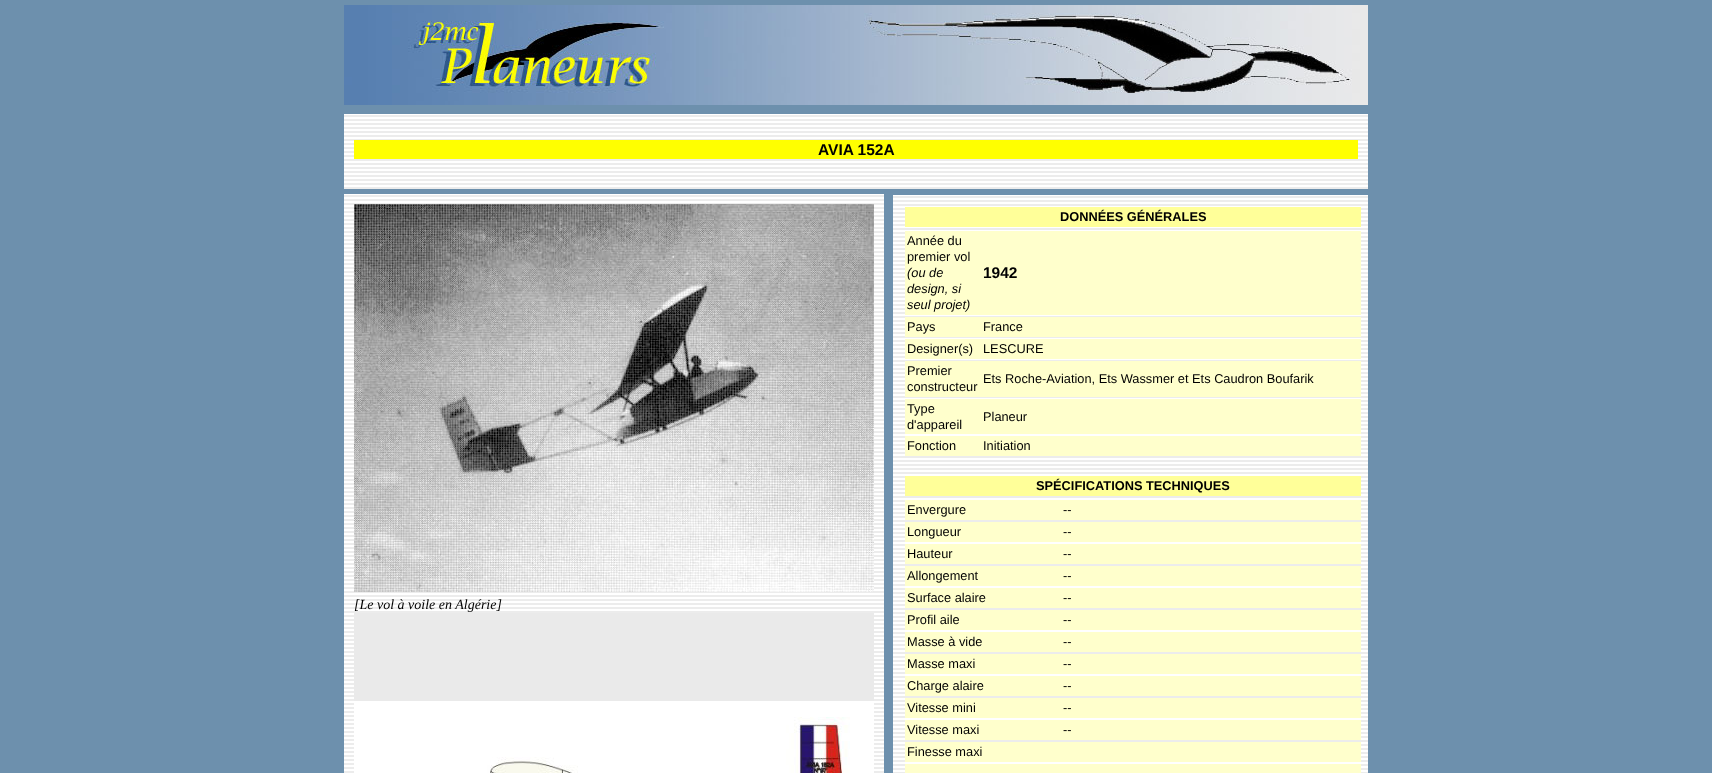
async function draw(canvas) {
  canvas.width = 1712
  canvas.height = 773
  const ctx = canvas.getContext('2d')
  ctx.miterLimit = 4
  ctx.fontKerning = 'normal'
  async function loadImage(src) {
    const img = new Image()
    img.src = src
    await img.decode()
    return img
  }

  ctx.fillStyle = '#6d90ad'
  ctx.fillRect(0, 0, 1712, 773)
  ctx.drawImage(await loadImage('image0.png'), 344, 5, 1024, 100)
  ctx.drawImage(await loadImage('image1.png'), 344, 114, 1024, 75)
  ctx.fillStyle = '#ff0'
  ctx.fillRect(354, 140, 1004, 19)
  ctx.font = 'bold 15.5px Liberation Sans'
  ctx.fillStyle = '#000'
  ctx.fillText('AVIA 152A', 818, 155)
  ctx.drawImage(await loadImage('image2.png'), 344, 194, 540, 579)
  ctx.drawImage(await loadImage('image3.png'), 354, 204, 520, 388)
  ctx.font = 'italic 14px Liberation Serif'
  ctx.fillText('[Le vol à voile en Algérie]', 354, 609)
  ctx.drawImage(await loadImage('image4.png'), 354, 613, 520, 160)
  ctx.drawImage(await loadImage('image5.png'), 893, 195, 475, 578)
  ctx.fillStyle = '#ff9'
  ctx.fillRect(905, 207, 456, 20)
  ctx.font = 'bold 12.8px Liberation Sans'
  ctx.fillStyle = '#000'
  ctx.fillText('DONNÉES GÉNÉRALES', 1060, 221)
  ctx.fillStyle = '#ffc'
  ctx.fillRect(905, 231, 456, 84)
  ctx.font = '12.8px Liberation Sans'
  ctx.fillStyle = '#000'
  ctx.fillText('Année du', 907, 245)
  ctx.fillText('premier vol', 907, 261)
  ctx.font = 'italic 12.8px Liberation Sans'
  ctx.fillText('(ou de', 907, 277)
  ctx.fillText('design, si', 907, 293)
  ctx.fillText('seul projet)', 907, 309)
  ctx.font = 'bold 15.5px Liberation Sans'
  ctx.fillText('1942', 983, 278)
  ctx.fillStyle = '#ffc'
  ctx.fillRect(905, 317, 456, 20)
  ctx.font = '12.8px Liberation Sans'
  ctx.fillStyle = '#000'
  ctx.fillText('Pays', 907, 331)
  ctx.fillText('France', 983, 331)
  ctx.fillStyle = '#ffc'
  ctx.fillRect(905, 339, 456, 20)
  ctx.fillStyle = '#000'
  ctx.fillText('Designer(s)', 907, 353)
  ctx.fillText('LESCURE', 983, 353)
  ctx.fillStyle = '#ffc'
  ctx.fillRect(905, 361, 456, 36)
  ctx.fillStyle = '#000'
  ctx.fillText('Premier', 907, 375)
  ctx.fillText('constructeur', 907, 391)
  ctx.fillText('Ets Roche-Aviation, Ets Wassmer et Ets Caudron Boufarik', 983, 383)
  ctx.fillStyle = '#ffc'
  ctx.fillRect(905, 399, 456, 35)
  ctx.fillStyle = '#000'
  ctx.fillText('Type', 907, 413)
  ctx.fillText('d\'appareil', 907, 429)
  ctx.fillText('Planeur', 983, 421)
  ctx.fillStyle = '#ffc'
  ctx.fillRect(905, 436, 456, 20)
  ctx.fillStyle = '#000'
  ctx.fillText('Fonction', 907, 450)
  ctx.fillText('Initiation', 983, 450)
  ctx.fillStyle = '#ff9'
  ctx.fillRect(905, 476, 456, 20)
  ctx.font = 'bold 12.8px Liberation Sans'
  ctx.fillStyle = '#000'
  ctx.fillText('SPÉCIFICATIONS TECHNIQUES', 1036, 490)
  ctx.fillStyle = '#ffc'
  ctx.fillRect(905, 500, 456, 20)
  ctx.font = '12.8px Liberation Sans'
  ctx.fillStyle = '#000'
  ctx.fillText('Envergure', 907, 514)
  ctx.fillText('--', 1063, 514)
  ctx.fillStyle = '#ffc'
  ctx.fillRect(905, 522, 456, 20)
  ctx.fillStyle = '#000'
  ctx.fillText('Longueur', 907, 536)
  ctx.fillText('--', 1063, 536)
  ctx.fillStyle = '#ffc'
  ctx.fillRect(905, 544, 456, 20)
  ctx.fillStyle = '#000'
  ctx.fillText('Hauteur', 907, 558)
  ctx.fillText('--', 1063, 558)
  ctx.fillStyle = '#ffc'
  ctx.fillRect(905, 566, 456, 20)
  ctx.fillStyle = '#000'
  ctx.fillText('Allongement', 907, 580)
  ctx.fillText('--', 1063, 580)
  ctx.fillStyle = '#ffc'
  ctx.fillRect(905, 588, 456, 20)
  ctx.fillStyle = '#000'
  ctx.fillText('Surface alaire', 907, 602)
  ctx.fillText('--', 1063, 602)
  ctx.fillStyle = '#ffc'
  ctx.fillRect(905, 610, 456, 20)
  ctx.fillStyle = '#000'
  ctx.fillText('Profil aile', 907, 624)
  ctx.fillText('--', 1063, 624)
  ctx.fillStyle = '#ffc'
  ctx.fillRect(905, 632, 456, 20)
  ctx.fillStyle = '#000'
  ctx.fillText('Masse à vide', 907, 646)
  ctx.fillText('--', 1063, 646)
  ctx.fillStyle = '#ffc'
  ctx.fillRect(905, 654, 456, 20)
  ctx.fillStyle = '#000'
  ctx.fillText('Masse maxi', 907, 668)
  ctx.fillText('--', 1063, 668)
  ctx.fillStyle = '#ffc'
  ctx.fillRect(905, 676, 456, 20)
  ctx.fillStyle = '#000'
  ctx.fillText('Charge alaire', 907, 690)
  ctx.fillText('--', 1063, 690)
  ctx.fillStyle = '#ffc'
  ctx.fillRect(905, 698, 456, 20)
  ctx.fillStyle = '#000'
  ctx.fillText('Vitesse mini', 907, 712)
  ctx.fillText('--', 1063, 712)
  ctx.fillStyle = '#ffc'
  ctx.fillRect(905, 720, 456, 20)
  ctx.fillStyle = '#000'
  ctx.fillText('Vitesse maxi', 907, 734)
  ctx.fillText('--', 1063, 734)
  ctx.fillStyle = '#ffc'
  ctx.fillRect(905, 742, 456, 20)
  ctx.fillStyle = '#000'
  ctx.fillText('Finesse maxi', 907, 756)
  ctx.fillStyle = '#ffc'
  ctx.fillRect(905, 764, 456, 9)
}

draw(document.querySelector('canvas'))
